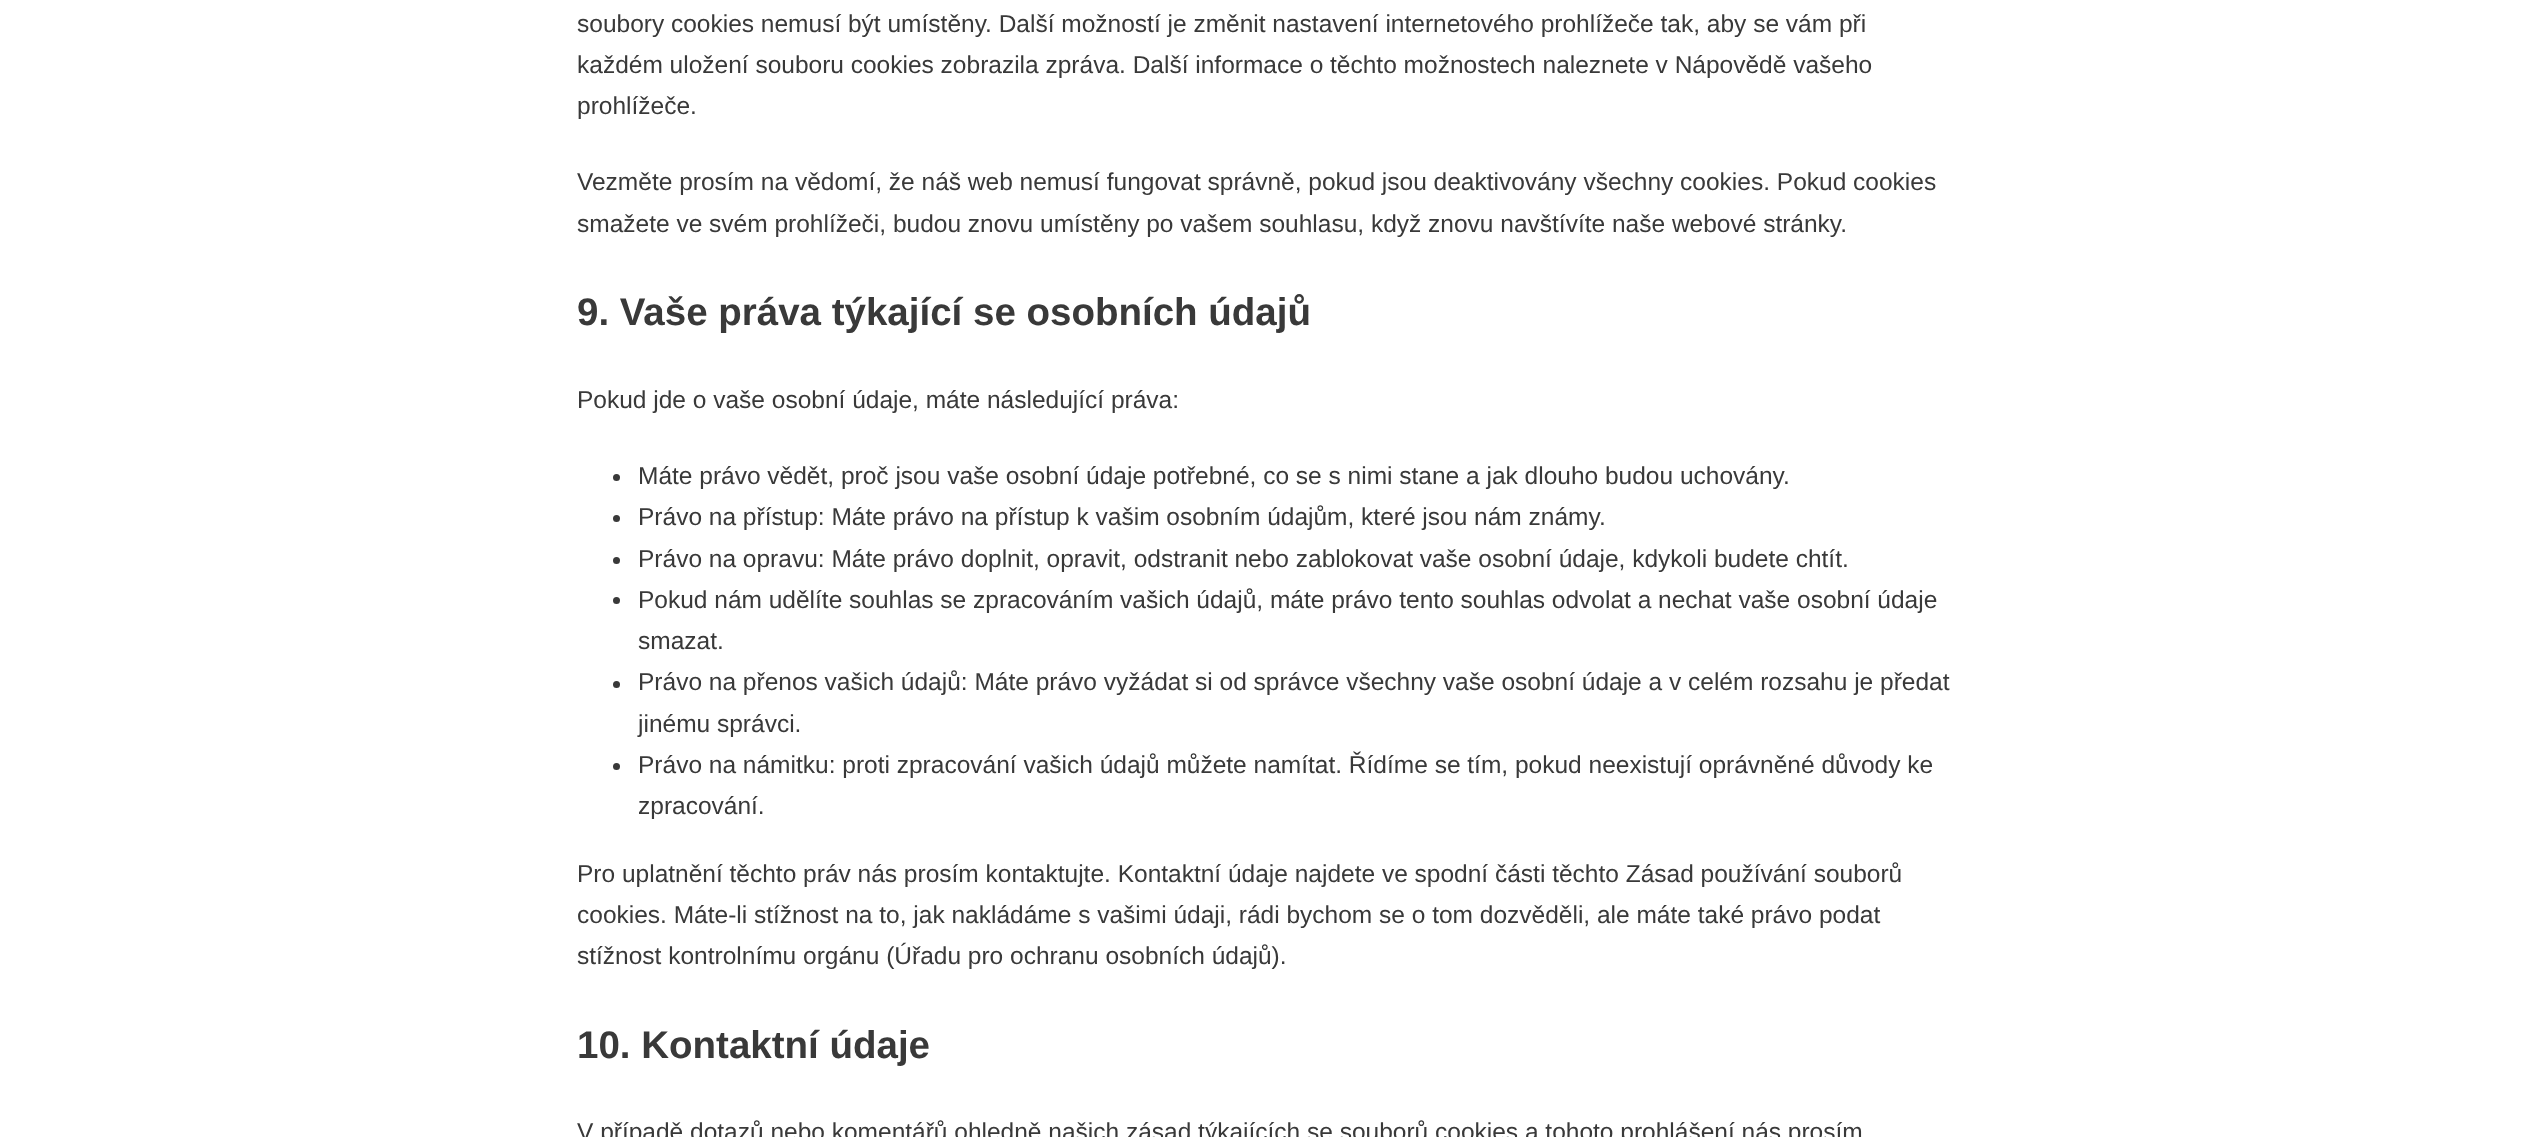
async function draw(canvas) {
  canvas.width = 2533
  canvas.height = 1137
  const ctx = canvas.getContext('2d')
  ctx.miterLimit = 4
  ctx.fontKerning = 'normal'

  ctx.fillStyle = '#fff'
  ctx.fillRect(0, 0, 2533, 1137)
  ctx.font = '24.5px Liberation Sans'
  ctx.fillStyle = '#393939'
  ctx.fillText('soubory cookies nemusí být umístěny. Další možností je změnit nastavení internetového prohlížeče tak, aby se vám při', 577, 32)
  ctx.fillText('každém uložení souboru cookies zobrazila zpráva. Další informace o těchto možnostech naleznete v Nápovědě vašeho', 577, 73)
  ctx.fillText('prohlížeče.', 577, 114)
  ctx.fillText('Vezměte prosím na vědomí, že náš web nemusí fungovat správně, pokud jsou deaktivovány všechny cookies. Pokud cookies', 577, 190)
  ctx.fillText('smažete ve svém prohlížeči, budou znovu umístěny po vašem souhlasu, když znovu navštívíte naše webové stránky.', 577, 232)
  ctx.font = 'bold 38.5px Liberation Sans'
  ctx.fillText('9. Vaše práva týkající se osobních údajů', 577, 325)
  ctx.font = '24.5px Liberation Sans'
  ctx.fillText('Pokud jde o vaše osobní údaje, máte následující práva:', 577, 408)
  ctx.beginPath()
  ctx.arc(616.5, 477.5, 3.5, 0, 2 * Math.PI)
  ctx.fill()
  ctx.fillText('Máte právo vědět, proč jsou vaše osobní údaje potřebné, co se s nimi stane a jak dlouho budou uchovány.', 638, 484)
  ctx.beginPath()
  ctx.arc(616.5, 518.5, 3.5, 0, 2 * Math.PI)
  ctx.fill()
  ctx.fillText('Právo na přístup: Máte právo na přístup k vašim osobním údajům, které jsou nám známy.', 638, 525)
  ctx.beginPath()
  ctx.arc(616.5, 560.5, 3.5, 0, 2 * Math.PI)
  ctx.fill()
  ctx.fillText('Právo na opravu: Máte právo doplnit, opravit, odstranit nebo zablokovat vaše osobní údaje, kdykoli budete chtít.', 638, 567)
  ctx.beginPath()
  ctx.arc(616.5, 600.5, 3.5, 0, 2 * Math.PI)
  ctx.fill()
  ctx.fillText('Pokud nám udělíte souhlas se zpracováním vašich údajů, máte právo tento souhlas odvolat a nechat vaše osobní údaje', 638, 608)
  ctx.fillText('smazat.', 638, 649)
  ctx.beginPath()
  ctx.arc(616.5, 684.5, 3.5, 0, 2 * Math.PI)
  ctx.fill()
  ctx.fillText('Právo na přenos vašich údajů: Máte právo vyžádat si od správce všechny vaše osobní údaje a v celém rozsahu je předat', 638, 690)
  ctx.fillText('jinému správci.', 638, 732)
  ctx.beginPath()
  ctx.arc(616.5, 766.5, 3.5, 0, 2 * Math.PI)
  ctx.fill()
  ctx.fillText('Právo na námitku: proti zpracování vašich údajů můžete namítat. Řídíme se tím, pokud neexistují oprávněné důvody ke', 638, 773)
  ctx.fillText('zpracování.', 638, 814)
  ctx.fillText('Pro uplatnění těchto práv nás prosím kontaktujte. Kontaktní údaje najdete ve spodní části těchto Zásad používání souborů', 577, 882)
  ctx.fillText('cookies. Máte-li stížnost na to, jak nakládáme s vašimi údaji, rádi bychom se o tom dozvěděli, ale máte také právo podat', 577, 923)
  ctx.fillText('stížnost kontrolnímu orgánu (Úřadu pro ochranu osobních údajů).', 577, 964)
  ctx.font = 'bold 38.5px Liberation Sans'
  ctx.fillText('10. Kontaktní údaje', 577, 1058)
  ctx.font = '24.5px Liberation Sans'
  ctx.fillText('V případě dotazů nebo komentářů ohledně našich zásad týkajících se souborů cookies a tohoto prohlášení nás prosím', 577, 1140)
}

draw(document.querySelector('canvas'))
